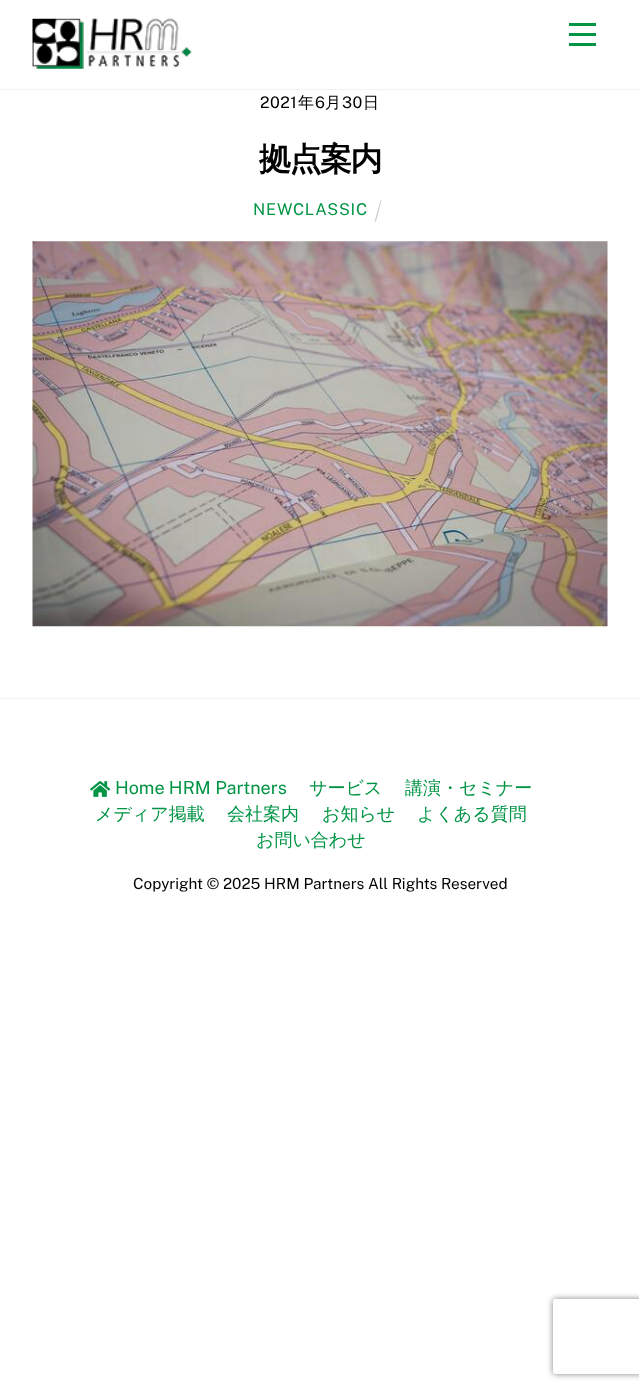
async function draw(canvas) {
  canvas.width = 639
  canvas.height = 1391
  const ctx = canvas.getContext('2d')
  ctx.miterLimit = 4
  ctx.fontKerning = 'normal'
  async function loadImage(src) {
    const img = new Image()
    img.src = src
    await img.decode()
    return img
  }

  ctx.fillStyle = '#fff'
  ctx.fillRect(0, 0, 639, 1391)
  ctx.fillStyle = '#f2f2f2'
  ctx.fillRect(0, 89, 639, 1)
  ctx.drawImage(await loadImage('image0.png'), 32, 18, 160, 51)
  ctx.fillStyle = '#009444'
  ctx.fillRect(569, 43, 27, 3)
  ctx.fillRect(569, 23, 27, 3)
  ctx.fillRect(569, 33, 27, 3)
  ctx.letterSpacing = '0.5px'
  ctx.font = '16px Public Sans'
  ctx.fillStyle = '#000'
  ctx.fillText('2021', 260, 108)
  ctx.font = '500 16px WenQuanYi Zen Hei'
  ctx.fillText('年', 298, 108)
  ctx.font = '16px Public Sans'
  ctx.fillText('6', 315, 108)
  ctx.font = '500 16px WenQuanYi Zen Hei'
  ctx.fillText('月', 325, 108)
  ctx.font = '16px Public Sans'
  ctx.fillText('30', 342, 108)
  ctx.font = '500 16px WenQuanYi Zen Hei'
  ctx.fillText('日', 363, 108)
  ctx.letterSpacing = '-1.5px'
  ctx.font = 'bold 32px WenQuanYi Zen Hei'
  ctx.fillText('拠点案内', 259, 170)
  ctx.letterSpacing = '0.75px'
  ctx.font = '16.25px Public Sans'
  ctx.fillStyle = '#009444'
  ctx.fillText('NEWCLASSIC', 253, 215)
  ctx.fillStyle = '#ccc'
  ctx.beginPath()
  ctx.moveTo(380.5, 200.5)
  ctx.lineTo(381.5, 200.5)
  ctx.lineTo(376, 221.5)
  ctx.lineTo(374.5, 221.5)
  ctx.closePath()
  ctx.fill()
  ctx.drawImage(await loadImage('image1.png'), 32, 241, 576, 386)
  ctx.fillStyle = '#f2f2f2'
  ctx.fillRect(0, 698, 639, 1)
  ctx.drawImage(await loadImage('image2.png'), 90, 781, 20, 16)
  ctx.letterSpacing = '0px'
  ctx.font = '18px Public Sans'
  ctx.fillStyle = '#009444'
  ctx.fillText('Home HRM Partners', 115, 794)
  ctx.font = '500 18px WenQuanYi Zen Hei'
  ctx.fillText('サービス', 309, 794)
  ctx.fillText('講演・セミナー', 405, 794)
  ctx.fillText('メディア掲載', 95, 820)
  ctx.fillText('会社案内', 227, 820)
  ctx.fillText('お知らせ', 322, 820)
  ctx.fillText('よくある質問', 417, 820)
  ctx.fillText('お問い合わせ', 256, 846)
  ctx.font = '15.3px Public Sans'
  ctx.fillStyle = '#000'
  ctx.fillText('Copyright © 2025 HRM Partners All Rights Reserved', 133, 889)
  ctx.save()
  ctx.beginPath()
  ctx.moveTo(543, 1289)
  ctx.lineTo(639, 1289)
  ctx.lineTo(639, 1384)
  ctx.lineTo(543, 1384)
  ctx.closePath()
  ctx.moveTo(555.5, 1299)
  ctx.lineTo(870.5, 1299)
  ctx.bezierCurveTo(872, 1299, 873, 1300, 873, 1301.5)
  ctx.lineTo(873, 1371.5)
  ctx.bezierCurveTo(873, 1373, 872, 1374, 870.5, 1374)
  ctx.lineTo(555.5, 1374)
  ctx.bezierCurveTo(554, 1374, 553, 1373, 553, 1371.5)
  ctx.lineTo(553, 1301.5)
  ctx.bezierCurveTo(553, 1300, 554, 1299, 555.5, 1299)
  ctx.closePath()
  ctx.clip('evenodd')
  ctx.fillStyle = '#808080'
  ctx.filter = 'blur(3px)'
  ctx.beginPath()
  ctx.roundRect(553, 1299, 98, 75, 2.5)
  ctx.fill()
  ctx.filter = 'none'
  ctx.restore()
}

draw(document.querySelector('canvas'))
